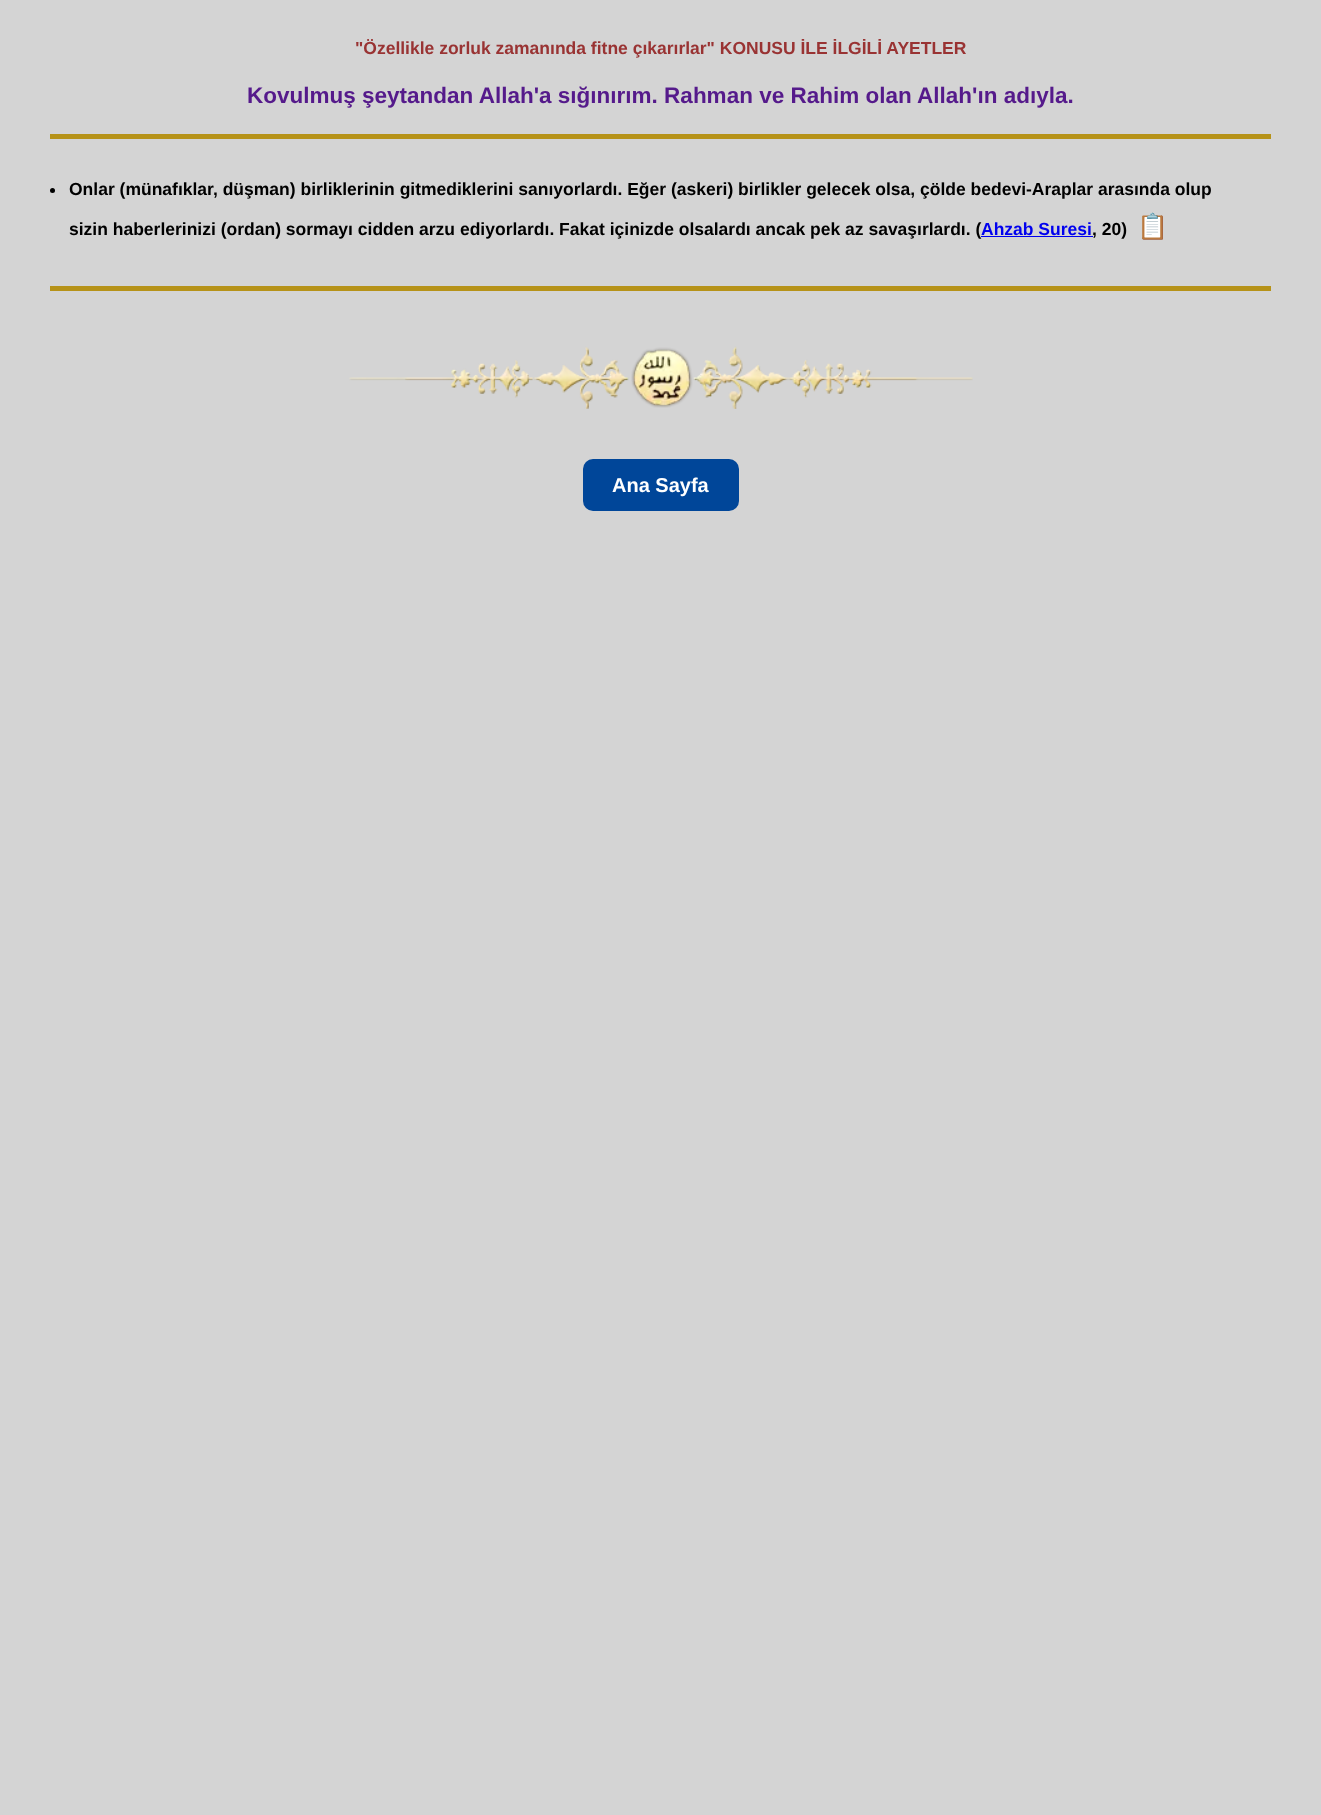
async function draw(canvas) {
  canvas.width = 1321
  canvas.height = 1815
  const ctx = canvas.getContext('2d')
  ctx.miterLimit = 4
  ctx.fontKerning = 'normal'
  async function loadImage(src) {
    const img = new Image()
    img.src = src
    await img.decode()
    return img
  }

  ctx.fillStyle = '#d4d4d4'
  ctx.fillRect(0, 0, 1321, 1815)
  ctx.font = 'bold 17.5px Liberation Sans'
  ctx.fillStyle = '#933'
  ctx.fillText('"Özellikle zorluk zamanında fitne çıkarırlar" KONUSU İLE İLGİLİ AYETLER', 355, 54)
  ctx.font = 'bold 22.5px Liberation Sans'
  ctx.fillStyle = '#551a8b'
  ctx.fillText('Kovulmuş şeytandan Allah\'a sığınırım. Rahman ve Rahim olan Allah\'ın adıyla.', 247, 103)
  ctx.fillStyle = '#b69218'
  ctx.fillRect(50, 134, 1221, 5)
  ctx.fillRect(50, 286, 1221, 5)
  ctx.fillStyle = '#000'
  ctx.beginPath()
  ctx.arc(52.5, 190.5, 2.5, 0, 2 * Math.PI)
  ctx.fill()
  ctx.font = 'bold 17.5px Liberation Sans'
  ctx.fillText('Onlar (münafıklar, düşman) birliklerinin gitmediklerini sanıyorlardı. Eğer (askeri) birlikler gelecek olsa, çölde bedevi-Araplar arasında olup', 69, 195)
  ctx.fillText('sizin haberlerinizi (ordan) sormayı cidden arzu ediyorlardı. Fakat içinizde olsalardı ancak pek az savaşırlardı. (', 69, 235)
  ctx.fillStyle = '#00e'
  ctx.fillText('Ahzab Suresi', 981, 235)
  ctx.fillRect(981, 236, 112, 1)
  ctx.fillStyle = '#000'
  ctx.fillText(', 20)', 1092, 235)
  ctx.font = 'bold 25px Noto Color Emoji'
  ctx.fillText('📋', 1137, 235)
  ctx.drawImage(await loadImage('image0.png'), 349, 346, 624, 63)
  ctx.fillStyle = '#004699'
  ctx.beginPath()
  ctx.roundRect(583, 459, 156, 52, 10)
  ctx.fill()
  ctx.font = 'bold 20px Liberation Sans'
  ctx.fillStyle = '#fff'
  ctx.fillText('Ana Sayfa', 612, 492)
}

draw(document.querySelector('canvas'))
